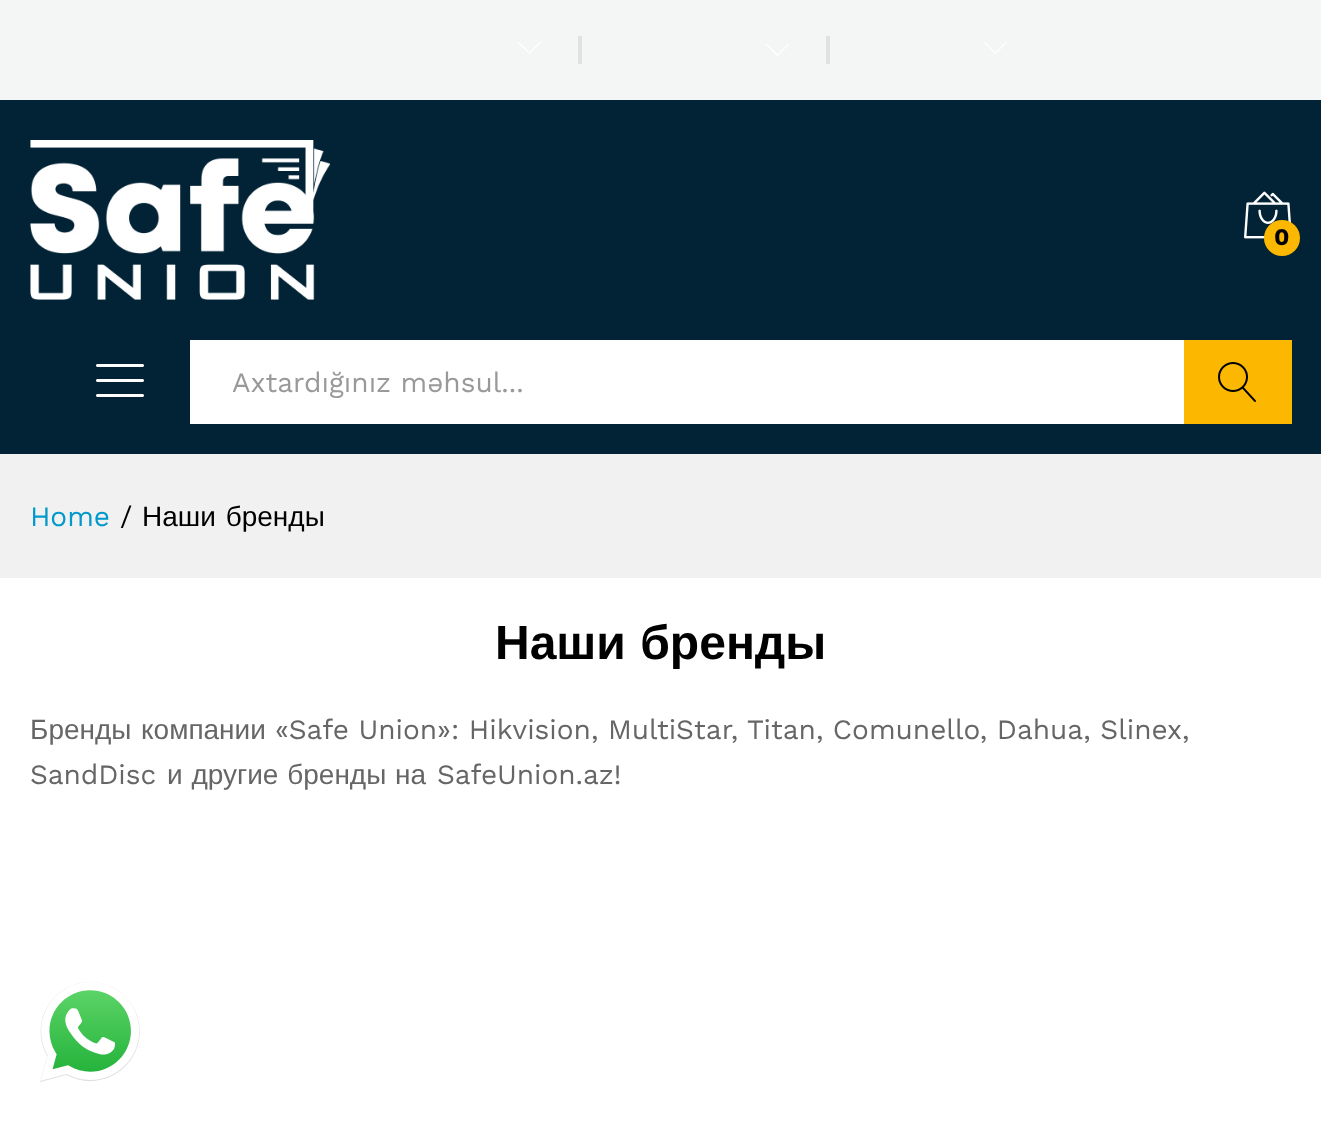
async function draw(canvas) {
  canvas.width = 1321
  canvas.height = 1122
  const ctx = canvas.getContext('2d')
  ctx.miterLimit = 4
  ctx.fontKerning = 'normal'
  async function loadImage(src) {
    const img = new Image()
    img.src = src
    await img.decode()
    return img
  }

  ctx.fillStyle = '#fff'
  ctx.fillRect(0, 0, 1321, 1122)
  ctx.fillStyle = '#f4f5f5'
  ctx.fillRect(0, 0, 1321, 100)
  ctx.drawImage(await loadImage('image0.png'), 518, 42, 23, 12)
  ctx.fillStyle = '#e1e1e1'
  ctx.fillRect(578, 36, 4, 28)
  ctx.drawImage(await loadImage('image0.png'), 766, 44, 23, 12)
  ctx.fillRect(826, 36, 4, 28)
  ctx.drawImage(await loadImage('image0.png'), 984, 42, 23, 12)
  ctx.fillStyle = '#022335'
  ctx.fillRect(0, 100, 1321, 354)
  ctx.drawImage(await loadImage('image1.png'), 30, 140, 300, 160)
  ctx.drawImage(await loadImage('image2.png'), 1244, 191, 47, 48)
  ctx.fillStyle = '#fcb800'
  ctx.beginPath()
  ctx.arc(1282, 238, 18, 0, 2 * Math.PI)
  ctx.fill()
  ctx.font = 'bold 24px Work Sans'
  ctx.fillStyle = '#000'
  ctx.fillText('0', 1274, 245)
  ctx.drawImage(await loadImage('image3.png'), 96, 364, 48, 33)
  ctx.fillStyle = '#fff'
  ctx.fillRect(190, 340, 994, 84)
  ctx.font = '28px Work Sans'
  ctx.fillStyle = '#999'
  ctx.fillText('Axtardığınız məhsul...', 232, 392)
  ctx.fillStyle = '#fcb800'
  ctx.fillRect(1184, 340, 108, 84)
  ctx.drawImage(await loadImage('image4.png'), 1218, 362, 38, 40)
  ctx.fillStyle = '#f1f1f1'
  ctx.fillRect(0, 454, 1321, 124)
  ctx.fillStyle = '#09c'
  ctx.fillText('Home', 30, 526)
  ctx.fillStyle = '#000'
  ctx.fillText('/', 120, 526)
  ctx.wordSpacing = '2px'
  ctx.font = '28px Liberation Sans'
  ctx.fillText('Наши бренды', 142, 526)
  ctx.wordSpacing = '1px'
  ctx.font = 'bold 48px Liberation Sans'
  ctx.fillText('Наши бренды', 495, 659)
  ctx.wordSpacing = '0px'
  ctx.font = '28px Liberation Sans'
  ctx.fillStyle = '#666'
  ctx.fillText('Бренды', 30, 739)
  ctx.fillText('компании', 141, 739)
  ctx.font = '28px Work Sans'
  ctx.fillText('«Safe Union»: Hikvision, MultiStar, Titan, Comunello, Dahua, Slinex,', 275, 739)
  ctx.fillText('SandDisc', 30, 784)
  ctx.wordSpacing = '1px'
  ctx.font = '28px Liberation Sans'
  ctx.fillText('и другие бренды на', 167, 784)
  ctx.wordSpacing = '0px'
  ctx.font = '28px Work Sans'
  ctx.fillText('SafeUnion.az!', 437, 784)
  ctx.drawImage(await loadImage('image5.png'), 40, 982, 100, 100)
}

draw(document.querySelector('canvas'))
